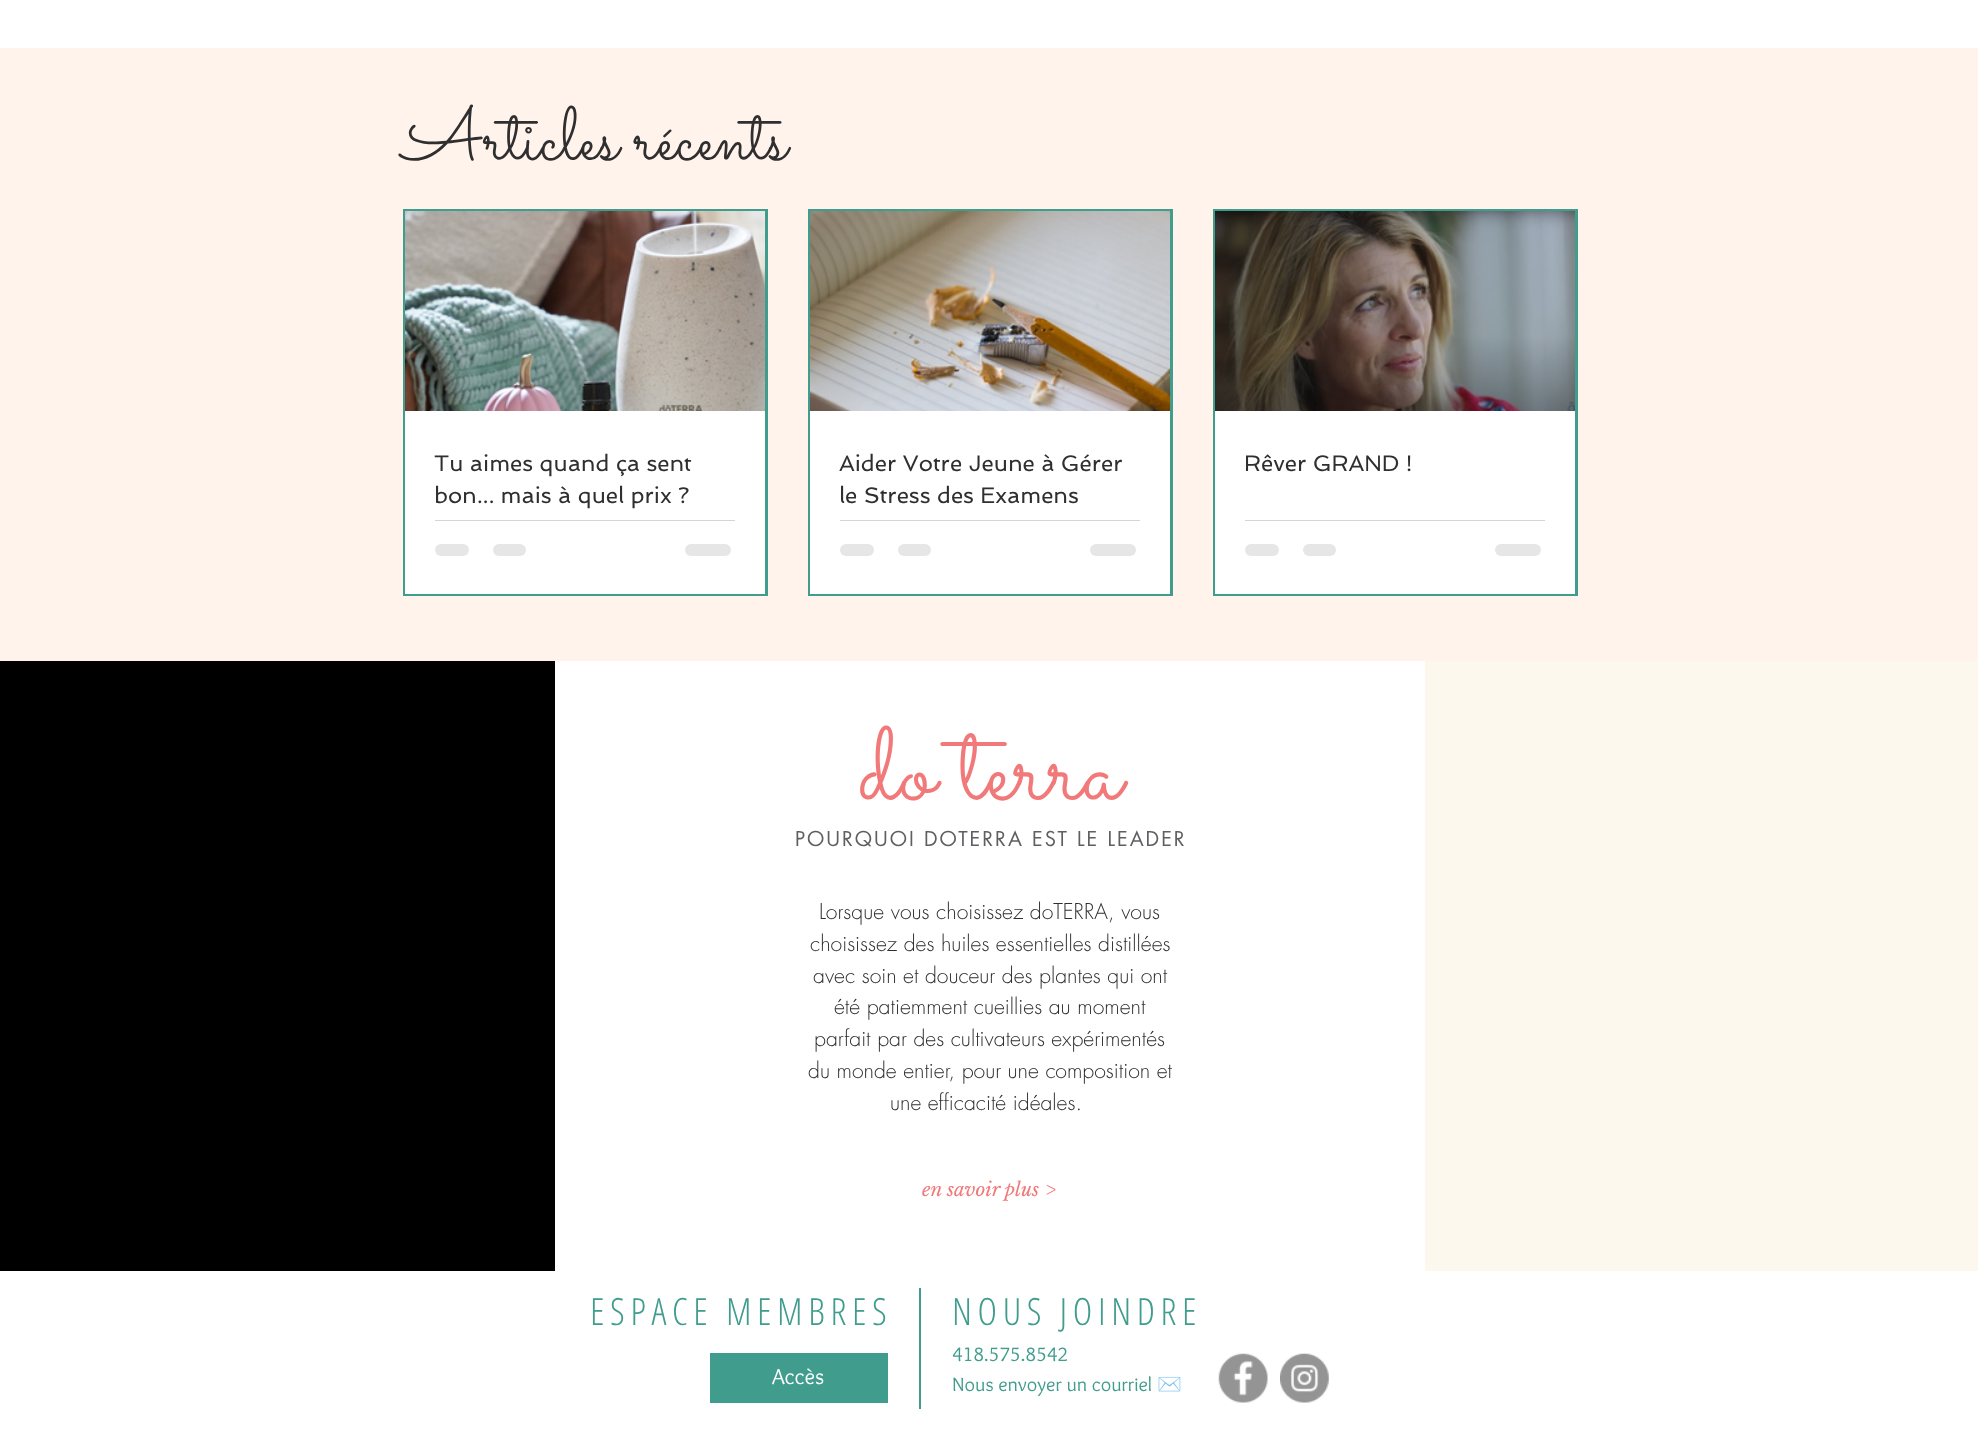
async function draw(canvas) {
  canvas.width = 1978
  canvas.height = 1449
  const ctx = canvas.getContext('2d')
  ctx.miterLimit = 4
  ctx.fontKerning = 'normal'
  async function loadImage(src) {
    const img = new Image()
    img.src = src
    await img.decode()
    return img
  }

  ctx.fillStyle = '#fff'
  ctx.fillRect(0, 0, 1978, 1449)
  ctx.fillStyle = '#fff3ec'
  ctx.fillRect(0, 48, 1978, 613)
  ctx.font = '75px Sacramento'
  ctx.fillStyle = '#2f2f30'
  ctx.fillText('Articles récents', 402, 159)
  ctx.strokeStyle = '#409c8c'
  ctx.lineWidth = 3
  ctx.strokeRect(404.5, 210.5, 362, 384)
  ctx.drawImage(await loadImage('image0.png'), 405, 211, 360, 200)
  ctx.fillStyle = '#fff'
  ctx.fillRect(405, 411, 360, 183)
  ctx.font = '22.5px Spinnaker'
  ctx.fillStyle = '#2f2f30'
  ctx.fillText('Tu aimes quand ça sent', 434, 471)
  ctx.fillText('bon... mais à quel prix ?', 434, 503)
  ctx.fillStyle = '#d5d5d6'
  ctx.fillRect(435, 520, 300, 1)
  ctx.fillStyle = '#e6e6e6'
  ctx.beginPath()
  ctx.roundRect(435, 544, 34, 12, 6)
  ctx.fill()
  ctx.beginPath()
  ctx.roundRect(493, 544, 33, 12, 6)
  ctx.fill()
  ctx.beginPath()
  ctx.roundRect(685, 544, 46, 12, 6)
  ctx.fill()
  ctx.strokeRect(809.5, 210.5, 362, 384)
  ctx.drawImage(await loadImage('image1.png'), 810, 211, 360, 200)
  ctx.fillStyle = '#fff'
  ctx.fillRect(810, 411, 360, 183)
  ctx.fillStyle = '#2f2f30'
  ctx.fillText('Aider Votre Jeune à Gérer', 839, 471)
  ctx.fillText('le Stress des Examens', 839, 503)
  ctx.fillStyle = '#d5d5d6'
  ctx.fillRect(840, 520, 300, 1)
  ctx.fillStyle = '#e6e6e6'
  ctx.beginPath()
  ctx.roundRect(840, 544, 34, 12, 6)
  ctx.fill()
  ctx.beginPath()
  ctx.roundRect(898, 544, 33, 12, 6)
  ctx.fill()
  ctx.beginPath()
  ctx.roundRect(1090, 544, 46, 12, 6)
  ctx.fill()
  ctx.strokeRect(1214.5, 210.5, 362, 384)
  ctx.drawImage(await loadImage('image2.png'), 1215, 211, 360, 200)
  ctx.fillStyle = '#fff'
  ctx.fillRect(1215, 411, 360, 183)
  ctx.fillStyle = '#2f2f30'
  ctx.fillText('Rêver GRAND !', 1244, 471)
  ctx.fillStyle = '#d5d5d6'
  ctx.fillRect(1245, 520, 300, 1)
  ctx.fillStyle = '#e6e6e6'
  ctx.beginPath()
  ctx.roundRect(1245, 544, 34, 12, 6)
  ctx.fill()
  ctx.beginPath()
  ctx.roundRect(1303, 544, 33, 12, 6)
  ctx.fill()
  ctx.beginPath()
  ctx.roundRect(1495, 544, 46, 12, 6)
  ctx.fill()
  ctx.fillStyle = '#000'
  ctx.fillRect(0, 661, 555, 610)
  ctx.font = '112.5px Sacramento'
  ctx.fillStyle = '#f27979'
  ctx.fillText('do terra', 859, 799)
  ctx.letterSpacing = '2px'
  ctx.font = '20px futura'
  ctx.fillStyle = '#5f5e61'
  ctx.fillText('POURQUOI DOTERRA EST LE LEADER', 795, 846)
  ctx.letterSpacing = '0px'
  ctx.font = '300 21.25px futura'
  ctx.fillStyle = '#2f2f30'
  ctx.fillText('Lorsque vous choisissez doTERRA, vous', 819, 919)
  ctx.fillText('choisissez des huiles essentielles distillées', 810, 951)
  ctx.fillText('avec soin et douceur des plantes qui ont', 813, 983)
  ctx.fillText('été patiemment cueillies au moment', 834, 1014)
  ctx.fillText('parfait par des cultivateurs expérimentés', 814, 1046)
  ctx.fillText('du monde entier, pour une composition et', 808, 1078)
  ctx.fillText('une efficacité idéales.', 890, 1110)
  ctx.font = 'italic 18.75px Libre Baskerville'
  ctx.fillStyle = '#f27979'
  ctx.fillText('en savoir plus >', 922, 1196)
  ctx.fillStyle = '#fcf8ed'
  ctx.fillRect(1425, 661, 553, 610)
  ctx.letterSpacing = '5.6px'
  ctx.font = '300 37.5px Open Sans Condensed'
  ctx.fillStyle = '#409c8c'
  ctx.fillText('ESPACE MEMBRES', 590, 1325)
  ctx.fillRect(919, 1288, 2, 121)
  ctx.fillText('NOUS JOINDRE', 952, 1325)
  ctx.fillRect(710, 1353, 178, 50)
  ctx.letterSpacing = '0px'
  ctx.font = '22.5px Overlock'
  ctx.fillStyle = '#fff'
  ctx.fillText('Accès', 772, 1384)
  ctx.font = '20px Overlock'
  ctx.fillStyle = '#409c8c'
  ctx.fillText('418.575.8542', 952, 1361)
  ctx.drawImage(await loadImage('image3.png'), 1218, 1353, 50, 50)
  ctx.drawImage(await loadImage('image4.png'), 1280, 1353, 49, 50)
  ctx.fillText('Nous envoyer un courriel', 952, 1391)
  ctx.font = '20px Noto Color Emoji'
  ctx.fillText('✉️', 1157, 1391)
}

draw(document.querySelector('canvas'))
